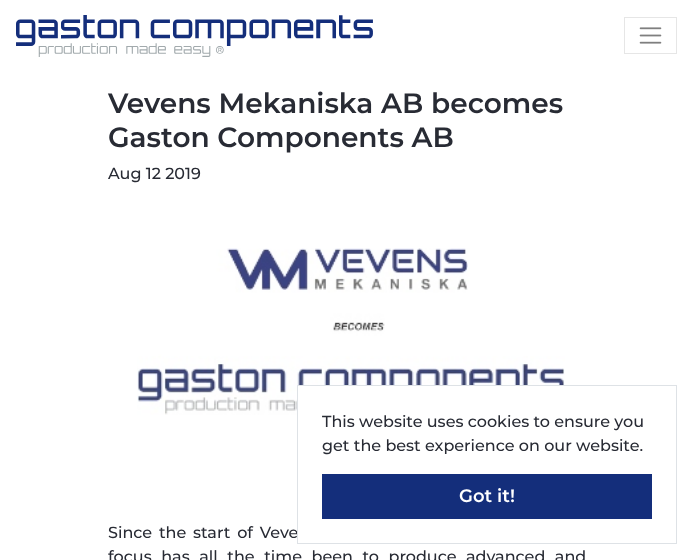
async function draw(canvas) {
  canvas.width = 693
  canvas.height = 560
  const ctx = canvas.getContext('2d')
  ctx.miterLimit = 4
  ctx.fontKerning = 'normal'
  async function loadImage(src) {
    const img = new Image()
    img.src = src
    await img.decode()
    return img
  }

  ctx.fillStyle = '#fff'
  ctx.fillRect(0, 0, 693, 560)
  ctx.drawImage(await loadImage('image0.png'), 16, 15, 357, 42)
  ctx.strokeStyle = '#e6e6e6'
  ctx.strokeRect(624.5, 17.5, 52, 36)
  ctx.drawImage(await loadImage('image1.png'), 639, 27, 23, 17)
  ctx.font = '600 28px Montserrat'
  ctx.fillStyle = '#282b34'
  ctx.fillText('Vevens Mekaniska AB becomes', 108, 113)
  ctx.fillText('Gaston Components AB', 108, 147)
  ctx.font = '500 16px Montserrat'
  ctx.fillText('Aug 12 2019', 108, 179)
  ctx.drawImage(await loadImage('image2.png'), 137, 248, 428, 167)
  ctx.wordSpacing = '2.5px'
  ctx.fillText('Since the start of Veve', 108, 538)
  ctx.wordSpacing = '5.25px'
  ctx.fillText('focus has all the time been to produce advanced and', 108, 562)
  ctx.fillStyle = '#fff'
  ctx.fillRect(298, 386, 267, 29)
  ctx.strokeStyle = '#dee2e6'
  ctx.strokeRect(297.5, 385.5, 379, 158)
  ctx.wordSpacing = '0px'
  ctx.fillStyle = '#282b34'
  ctx.fillText('This website uses cookies to ensure you', 322, 427)
  ctx.fillText('get the best experience on our website.', 322, 451)
  ctx.fillStyle = '#142e7b'
  ctx.fillRect(322, 474, 330, 45)
  ctx.font = '600 18px Montserrat'
  ctx.fillStyle = '#fff'
  ctx.fillText('Got it!', 459, 502)
}

draw(document.querySelector('canvas'))
